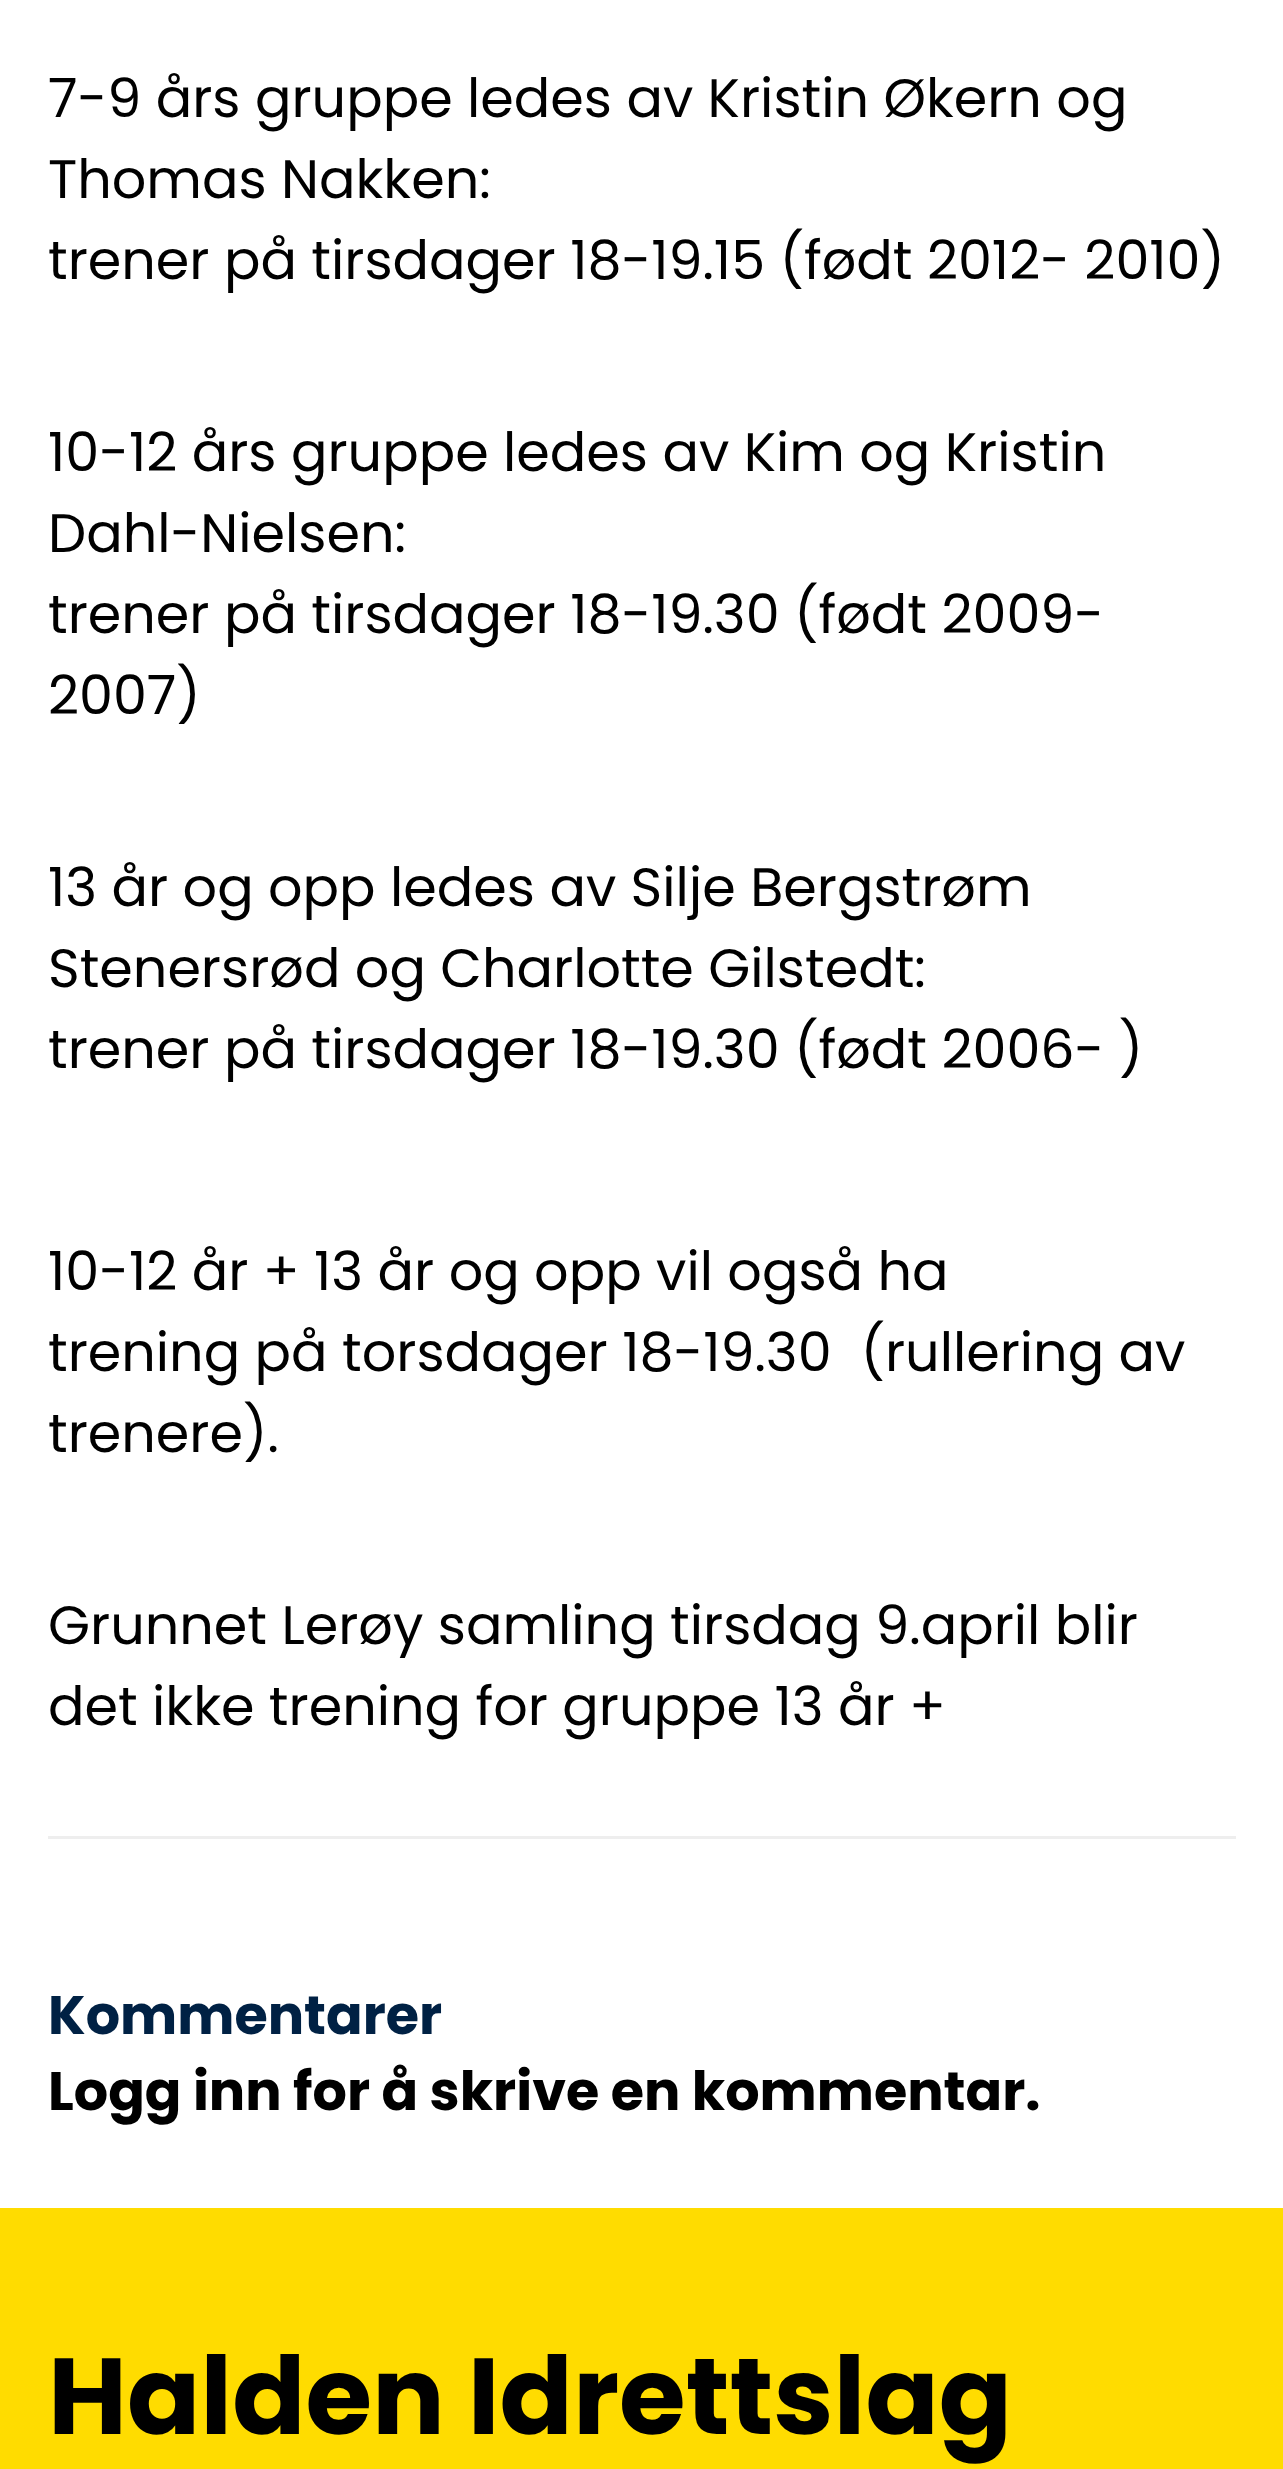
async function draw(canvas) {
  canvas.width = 1283
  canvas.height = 2469
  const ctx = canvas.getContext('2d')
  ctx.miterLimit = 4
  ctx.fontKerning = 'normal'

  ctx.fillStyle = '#fff'
  ctx.fillRect(0, 0, 1283, 2469)
  ctx.font = '54px Poppins'
  ctx.fillStyle = '#000'
  ctx.fillText('7-9 års gruppe ledes av Kristin Økern og', 48, 117)
  ctx.fillText('Thomas Nakken:', 48, 198)
  ctx.fillText('trener på tirsdager 18-19.15 (født 2012- 2010)', 48, 279)
  ctx.fillText('10-12 års gruppe ledes av Kim og Kristin', 48, 471)
  ctx.fillText('Dahl-Nielsen:', 48, 552)
  ctx.fillText('trener på tirsdager 18-19.30 (født 2009-', 48, 633)
  ctx.fillText('2007)', 48, 714)
  ctx.fillText('13 år og opp ledes av Silje Bergstrøm', 48, 906)
  ctx.fillText('Stenersrød og Charlotte Gilstedt:', 48, 987)
  ctx.fillText('trener på tirsdager 18-19.30 (født 2006- )', 48, 1068)
  ctx.fillText('10-12 år + 13 år og opp vil også ha', 48, 1290)
  ctx.fillText('trening på torsdager 18-19.30  (rullering av', 48, 1371)
  ctx.fillText('trenere).', 48, 1452)
  ctx.fillText('Grunnet Lerøy samling tirsdag 9.april blir', 48, 1644)
  ctx.fillText('det ikke trening for gruppe 13 år +', 48, 1725)
  ctx.fillStyle = '#eee'
  ctx.fillRect(48, 1836, 1188, 3)
  ctx.font = 'bold 54px Poppins'
  ctx.fillStyle = '#002144'
  ctx.fillText('Kommentarer', 48, 2034)
  ctx.fillStyle = '#000'
  ctx.fillText('Logg inn for å skrive en kommentar.', 48, 2110)
  ctx.fillStyle = '#ffdc00'
  ctx.fillRect(0, 2208, 1283, 261)
  ctx.font = 'bold 108px Poppins'
  ctx.fillStyle = '#000'
  ctx.fillText('Halden Idrettslag', 48, 2434)
}

draw(document.querySelector('canvas'))
